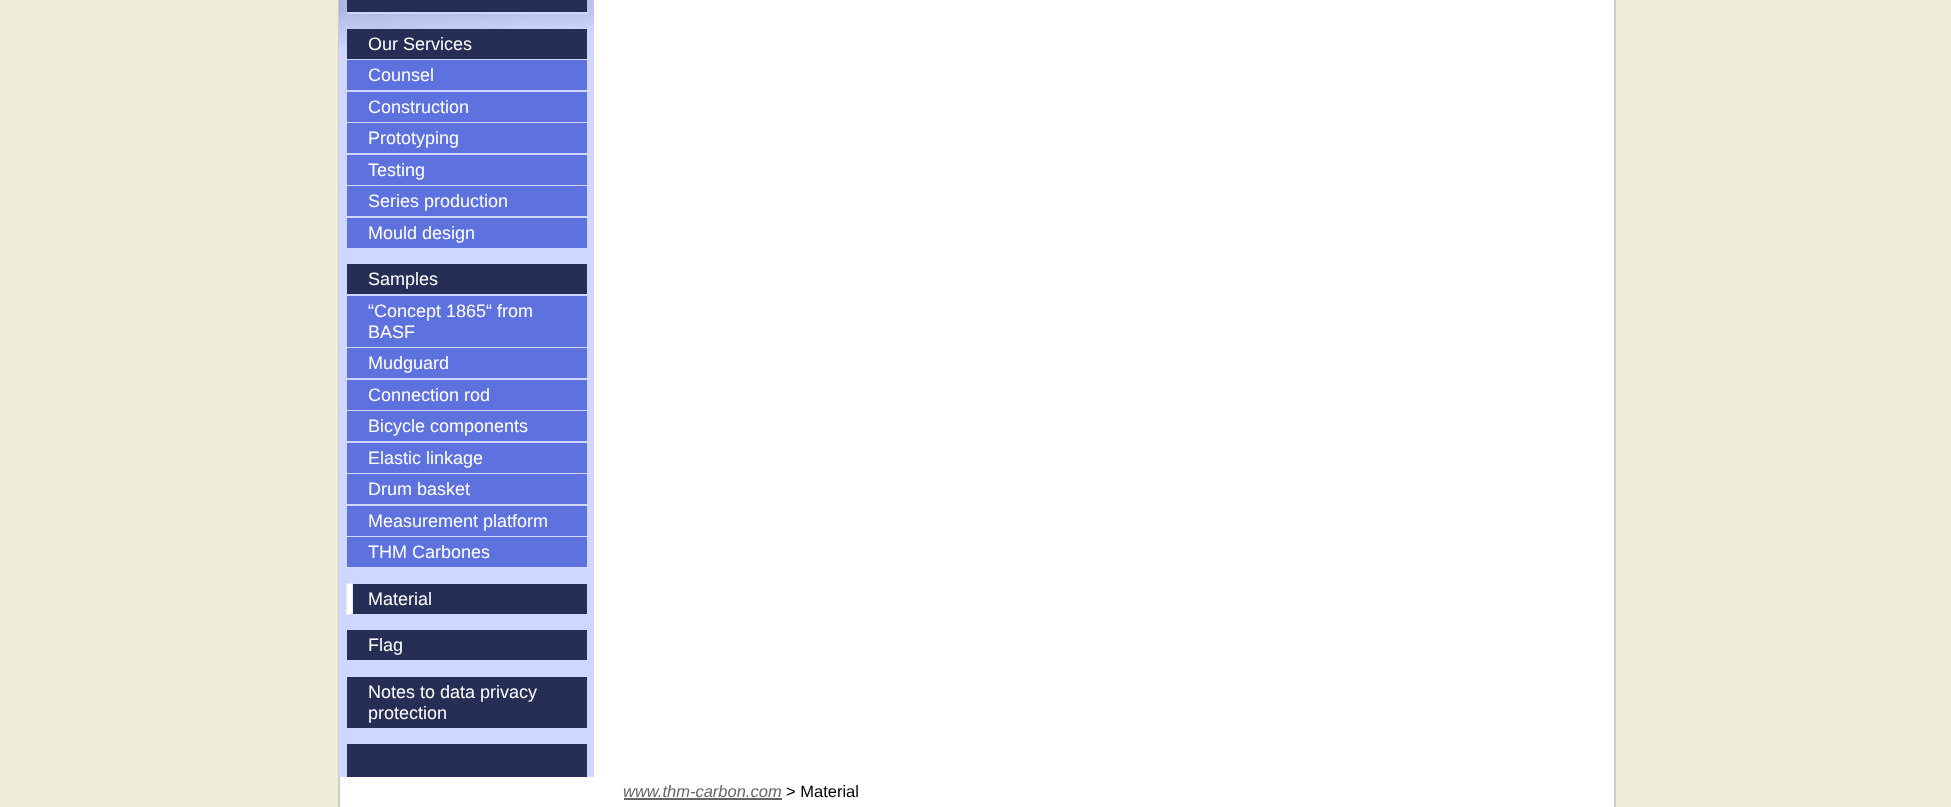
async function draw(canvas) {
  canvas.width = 1951
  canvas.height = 807
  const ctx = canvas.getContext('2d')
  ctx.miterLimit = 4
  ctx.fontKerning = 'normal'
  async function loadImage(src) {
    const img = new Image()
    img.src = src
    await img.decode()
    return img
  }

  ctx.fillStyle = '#efecda'
  ctx.fillRect(0, 0, 1951, 807)
  ctx.fillStyle = '#fff'
  ctx.beginPath()
  ctx.rect(339, -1, 1276, 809)
  ctx.fill()
  ctx.strokeStyle = '#ccc'
  ctx.lineWidth = 2
  ctx.stroke()
  ctx.fillStyle = '#cfd6ff'
  ctx.fillRect(339, 46, 255, 731)
  ctx.drawImage(await loadImage('image0.png'), 339, 0, 255, 46)
  ctx.fillStyle = '#262e55'
  ctx.fillRect(347, 0, 240, 12)
  ctx.fillStyle = '#cfd6ff'
  ctx.fillRect(347, 12, 240, 2)
  ctx.fillStyle = '#262e55'
  ctx.fillRect(347, 29, 240, 30)
  ctx.font = '18px Liberation Sans'
  ctx.fillStyle = '#fff'
  ctx.fillText('Our Services', 368, 50)
  ctx.fillStyle = '#5e72df'
  ctx.fillRect(347, 60, 240, 30)
  ctx.fillStyle = '#fff'
  ctx.fillText('Counsel', 368, 81)
  ctx.fillStyle = '#5e72df'
  ctx.fillRect(347, 92, 240, 30)
  ctx.fillStyle = '#fff'
  ctx.fillText('Construction', 368, 113)
  ctx.fillStyle = '#5e72df'
  ctx.fillRect(347, 123, 240, 30)
  ctx.fillStyle = '#fff'
  ctx.fillText('Prototyping', 368, 144)
  ctx.fillStyle = '#5e72df'
  ctx.fillRect(347, 155, 240, 30)
  ctx.fillStyle = '#fff'
  ctx.fillText('Testing', 368, 176)
  ctx.fillStyle = '#5e72df'
  ctx.fillRect(347, 186, 240, 30)
  ctx.fillStyle = '#fff'
  ctx.fillText('Series production', 368, 207)
  ctx.fillStyle = '#5e72df'
  ctx.fillRect(347, 218, 240, 30)
  ctx.fillStyle = '#fff'
  ctx.fillText('Mould design', 368, 239)
  ctx.fillStyle = '#262e55'
  ctx.fillRect(347, 264, 240, 30)
  ctx.fillStyle = '#fff'
  ctx.fillText('Samples', 368, 285)
  ctx.fillStyle = '#5e72df'
  ctx.fillRect(347, 296, 240, 51)
  ctx.fillStyle = '#fff'
  ctx.fillText('“Concept 1865“ from', 368, 317)
  ctx.fillText('BASF', 368, 338)
  ctx.fillStyle = '#5e72df'
  ctx.fillRect(347, 348, 240, 30)
  ctx.fillStyle = '#fff'
  ctx.fillText('Mudguard', 368, 369)
  ctx.fillStyle = '#5e72df'
  ctx.fillRect(347, 380, 240, 30)
  ctx.fillStyle = '#fff'
  ctx.fillText('Connection rod', 368, 401)
  ctx.fillStyle = '#5e72df'
  ctx.fillRect(347, 411, 240, 30)
  ctx.fillStyle = '#fff'
  ctx.fillText('Bicycle components', 368, 432)
  ctx.fillStyle = '#5e72df'
  ctx.fillRect(347, 443, 240, 30)
  ctx.fillStyle = '#fff'
  ctx.fillText('Elastic linkage', 368, 464)
  ctx.fillStyle = '#5e72df'
  ctx.fillRect(347, 474, 240, 30)
  ctx.fillStyle = '#fff'
  ctx.fillText('Drum basket', 368, 495)
  ctx.fillStyle = '#5e72df'
  ctx.fillRect(347, 506, 240, 30)
  ctx.fillStyle = '#fff'
  ctx.fillText('Measurement platform', 368, 527)
  ctx.fillStyle = '#5e72df'
  ctx.fillRect(347, 537, 240, 30)
  ctx.fillStyle = '#fff'
  ctx.fillText('THM Carbones', 368, 558)
  ctx.fillStyle = '#262e55'
  ctx.fillRect(353, 584, 234, 30)
  ctx.fillStyle = '#fff'
  ctx.beginPath()
  ctx.moveTo(346.5, 615)
  ctx.lineTo(346.5, 583.5)
  ctx.lineTo(352.5, 583.5)
  ctx.lineTo(352.5, 613.5)
  ctx.closePath()
  ctx.fill()
  ctx.fillText('Material', 368, 605)
  ctx.fillStyle = '#262e55'
  ctx.fillRect(347, 630, 240, 30)
  ctx.fillStyle = '#fff'
  ctx.fillText('Flag', 368, 651)
  ctx.fillStyle = '#262e55'
  ctx.fillRect(347, 677, 240, 51)
  ctx.fillStyle = '#fff'
  ctx.fillText('Notes to data privacy', 368, 698)
  ctx.fillText('protection', 368, 719)
  ctx.fillStyle = '#262e55'
  ctx.fillRect(347, 744, 240, 33)
  ctx.font = 'italic 16.5px Liberation Sans'
  ctx.fillStyle = '#666'
  ctx.fillText('www.thm-carbon.com', 623, 797)
  ctx.fillRect(624, 798, 158, 2)
  ctx.font = '16.5px Liberation Sans'
  ctx.fillStyle = '#000'
  ctx.fillText('> Material', 786, 797)
}

draw(document.querySelector('canvas'))
